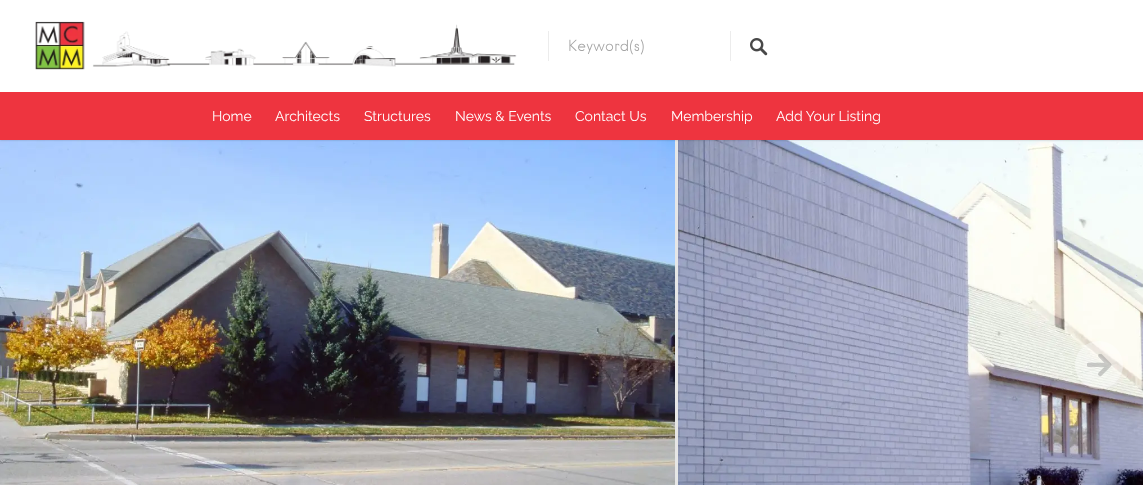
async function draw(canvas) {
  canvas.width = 1143
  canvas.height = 485
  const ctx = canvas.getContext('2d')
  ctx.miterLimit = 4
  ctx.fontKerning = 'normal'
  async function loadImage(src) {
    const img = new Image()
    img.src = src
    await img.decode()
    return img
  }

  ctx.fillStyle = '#e6e6e6'
  ctx.fillRect(0, 0, 1143, 485)
  ctx.drawImage(await loadImage('image2.png'), 0, 140, 675, 345)
  ctx.drawImage(await loadImage('image3.png'), 678, 140, 465, 345)
  ctx.fillStyle = '#00000040'
  ctx.filter = 'blur(1px)'
  ctx.beginPath()
  ctx.rect(0, 0, 1143, 140)
  ctx.fill()
  ctx.filter = 'none'
  ctx.fillStyle = '#fff'
  ctx.fillRect(0, 0, 1143, 92)
  ctx.drawImage(await loadImage('image0.png'), 35, 21, 482, 49)
  ctx.fillStyle = '#ececec'
  ctx.fillRect(548, 31, 1, 30)
  ctx.font = '300 15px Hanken'
  ctx.fillStyle = '#a4a4a4'
  ctx.fillText('Keyword(s)', 568, 51)
  ctx.fillStyle = '#ececec'
  ctx.fillRect(730, 31, 1, 30)
  ctx.drawImage(await loadImage('image1.png'), 750, 38, 18, 18)
  ctx.fillStyle = '#ee343f'
  ctx.fillRect(0, 92, 1143, 48)
  ctx.font = '14px Raleway'
  ctx.fillStyle = '#fff'
  ctx.fillText('Home', 212, 121)
  ctx.fillText('Architects', 275, 121)
  ctx.fillText('Structures', 364, 121)
  ctx.fillText('News & Events', 455, 121)
  ctx.fillText('Contact Us', 575, 121)
  ctx.fillText('Membership', 671, 121)
  ctx.fillText('Add Your Listing', 776, 121)
  ctx.fillStyle = '#ffffff66'
  ctx.beginPath()
  ctx.arc(1099, 365, 24, 0, 2 * Math.PI)
  ctx.fill()
  ctx.drawImage(await loadImage('image4.png'), 1087, 354, 25, 23)
}

draw(document.querySelector('canvas'))
